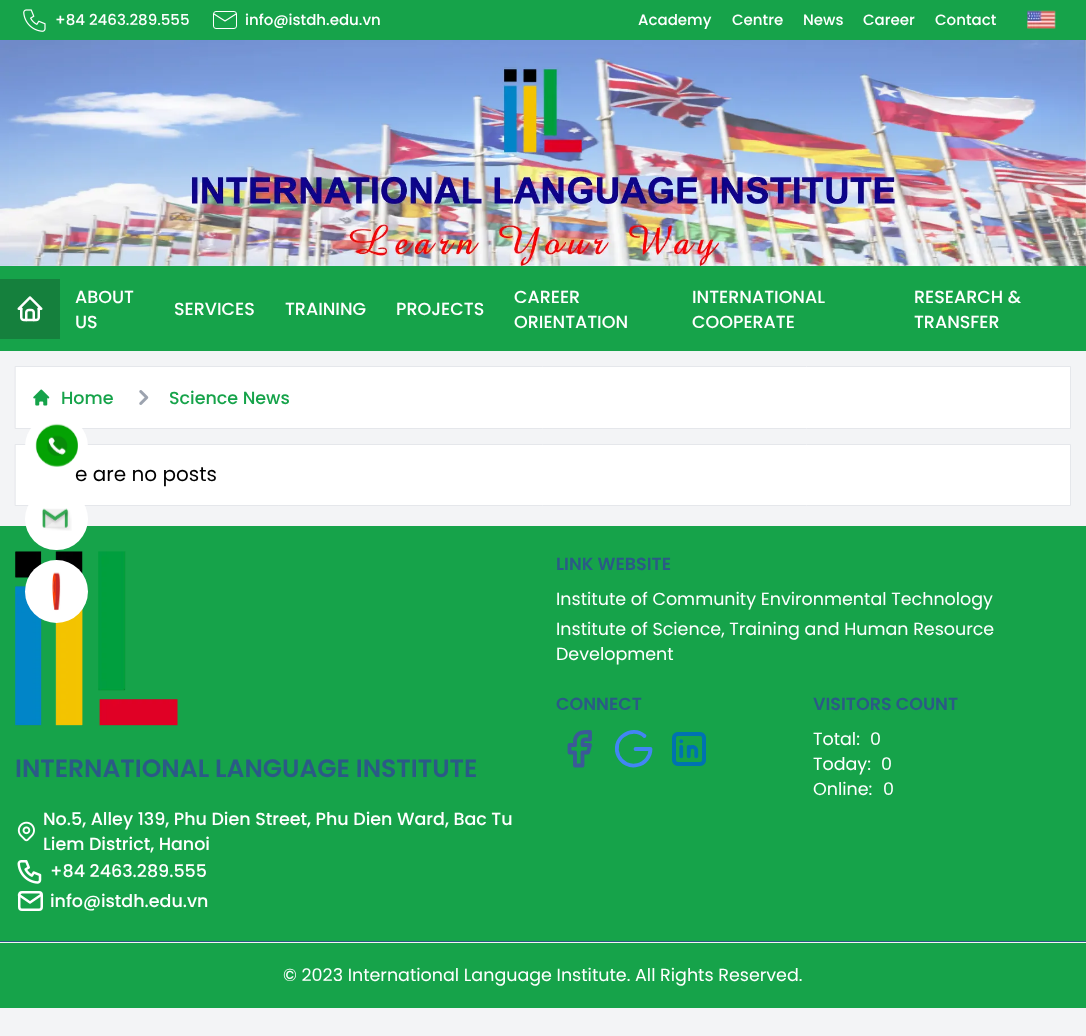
async function draw(canvas) {
  canvas.width = 1086
  canvas.height = 1036
  const ctx = canvas.getContext('2d')
  ctx.miterLimit = 4
  ctx.fontKerning = 'normal'
  async function loadImage(src) {
    const img = new Image()
    img.src = src
    await img.decode()
    return img
  }

  ctx.fillStyle = '#f3f4f6'
  ctx.fillRect(0, 0, 1086, 1036)
  ctx.fillStyle = '#16a34a'
  ctx.fillRect(0, 0, 1086, 40)
  ctx.drawImage(await loadImage('image0.png'), 23, 9, 23, 23)
  ctx.font = '500 15px Poppins'
  ctx.fillStyle = '#fff'
  ctx.fillText('+84 2463.289.555', 55, 25)
  ctx.beginPath()
  ctx.roundRect(213.5, 11.5, 23, 17, 2.5)
  ctx.strokeStyle = '#fff'
  ctx.stroke()
  ctx.beginPath()
  ctx.moveTo(214, 14)
  ctx.lineTo(225, 21)
  ctx.lineTo(236, 14)
  ctx.lineWidth = 1.2
  ctx.lineCap = 'round'
  ctx.lineJoin = 'round'
  ctx.stroke()
  ctx.fillText('info@istdh.edu.vn', 245, 25)
  ctx.fillText('Academy', 638, 25)
  ctx.fillText('Centre', 732, 25)
  ctx.fillText('News', 803, 25)
  ctx.fillText('Career', 863, 25)
  ctx.fillText('Contact', 935, 25)
  ctx.drawImage(await loadImage('image1.png'), 1027, 10, 29, 19)
  ctx.drawImage(await loadImage('image2.png'), 0, 40, 1086, 226)
  ctx.fillStyle = '#16a34a'
  ctx.fillRect(0, 266, 1086, 85)
  ctx.fillStyle = '#15803d'
  ctx.fillRect(0, 279, 60, 60)
  ctx.drawImage(await loadImage('image3.png'), 17, 296, 26, 26)
  ctx.font = '500 17.5px Poppins'
  ctx.fillStyle = '#fff'
  ctx.fillText('ABOUT', 75, 303)
  ctx.fillText('US', 75, 328)
  ctx.fillText('SERVICES', 174, 315)
  ctx.fillText('TRAINING', 285, 315)
  ctx.fillText('PROJECTS', 396, 315)
  ctx.fillText('CAREER', 514, 303)
  ctx.fillText('ORIENTATION', 514, 328)
  ctx.fillText('INTERNATIONAL', 692, 303)
  ctx.fillText('COOPERATE', 692, 328)
  ctx.fillText('RESEARCH &', 914, 303)
  ctx.fillText('TRANSFER', 914, 328)
  ctx.beginPath()
  ctx.rect(15.5, 366.5, 1055, 62)
  ctx.fill()
  ctx.strokeStyle = '#e5e7eb'
  ctx.lineWidth = 1
  ctx.lineJoin = 'miter'
  ctx.stroke()
  ctx.beginPath()
  ctx.rect(15.5, 444.5, 1055, 61)
  ctx.fill()
  ctx.stroke()
  ctx.font = '20px Poppins'
  ctx.fillStyle = '#000'
  ctx.fillText('e are no posts', 75, 481)
  ctx.fillStyle = '#fff'
  ctx.beginPath()
  ctx.arc(56.5, 446.5, 31.5, 0, 2 * Math.PI)
  ctx.fill()
  ctx.drawImage(await loadImage('image4.png'), 35, 423, 43, 44)
  ctx.fillStyle = '#16a34a'
  ctx.fillRect(0, 526, 1086, 415)
  ctx.fillStyle = '#fff'
  ctx.beginPath()
  ctx.roundRect(25, 488, 63, 62, 31)
  ctx.fill()
  ctx.drawImage(await loadImage('image5.png'), 42, 508, 30, 23)
  ctx.drawImage(await loadImage('image10.png'), 15, 551, 163, 175)
  ctx.beginPath()
  ctx.arc(56.5, 591.5, 31.5, 0, 2 * Math.PI)
  ctx.fill()
  ctx.drawImage(await loadImage('image6.png'), 52, 572, 9, 39)
  ctx.drawImage(await loadImage('image7.png'), 33, 389, 17, 17)
  ctx.font = '500 17.5px Poppins'
  ctx.fillStyle = '#16a34a'
  ctx.fillText('Home', 61, 404)
  ctx.drawImage(await loadImage('image8.png'), 139, 390, 10, 15)
  ctx.fillText('Science News', 169, 404)
  ctx.font = '600 17.5px Poppins'
  ctx.fillStyle = '#2b5a86'
  ctx.fillText('LINK WEBSITE', 556, 570)
  ctx.font = '17.5px Poppins'
  ctx.fillStyle = '#fff'
  ctx.fillText('Institute of Community Environmental Technology', 556, 605)
  ctx.fillText('Institute of Science, Training and Human Resource', 556, 635)
  ctx.fillText('Development', 556, 660)
  ctx.font = '600 17.5px Poppins'
  ctx.fillStyle = '#2b5a86'
  ctx.fillText('CONNECT', 556, 710)
  ctx.beginPath()
  ctx.moveTo(569.5, 745)
  ctx.lineTo(569.5, 752.5)
  ctx.lineTo(575, 752.5)
  ctx.lineTo(575, 765.5)
  ctx.lineTo(582.5, 765.5)
  ctx.lineTo(582.5, 752.5)
  ctx.lineTo(588, 752.5)
  ctx.lineTo(590, 745)
  ctx.lineTo(582.5, 745)
  ctx.bezierCurveTo(582.5, 738, 583, 739.5, 590, 739.5)
  ctx.lineTo(590, 732)
  ctx.bezierCurveTo(584, 732, 577, 731.5, 575, 739.5)
  ctx.lineTo(575, 745)
  ctx.lineTo(569.5, 745)
  ctx.strokeStyle = '#3b5998'
  ctx.lineWidth = 3.8
  ctx.lineJoin = 'round'
  ctx.stroke()
  ctx.beginPath()
  ctx.moveTo(644.5, 736)
  ctx.bezierCurveTo(638.5, 730.5, 630, 730.5, 623.5, 735.5)
  ctx.bezierCurveTo(617, 740, 615, 748.5, 618.5, 756)
  ctx.bezierCurveTo(622, 763, 629.5, 767, 637.5, 765)
  ctx.bezierCurveTo(645, 763.5, 650.5, 756.5, 650.5, 749)
  ctx.lineTo(635.5, 749)
  ctx.strokeStyle = '#4285f4'
  ctx.stroke()
  ctx.drawImage(await loadImage('image9.png'), 672, 732, 34, 34)
  ctx.fillText('VISITORS COUNT', 813, 710)
  ctx.font = '17.5px Poppins'
  ctx.fillStyle = '#fff'
  ctx.fillText('Total:', 813, 745)
  ctx.fillText('0', 870, 745)
  ctx.fillText('Today:', 813, 770)
  ctx.fillText('0', 881, 770)
  ctx.fillText('Online:', 813, 795)
  ctx.fillText('0', 883, 795)
  ctx.font = '600 25px Poppins'
  ctx.fillStyle = '#2b5a86'
  ctx.fillText('INTERNATIONAL LANGUAGE INSTITUTE', 15, 777)
  ctx.drawImage(await loadImage('image11.png'), 17, 821, 18, 21)
  ctx.font = '500 17.5px Poppins'
  ctx.fillStyle = '#fff'
  ctx.fillText('No.5, Alley 139, Phu Dien Street, Phu Dien Ward, Bac Tu', 43, 825)
  ctx.fillText('Liem District, Hanoi', 43, 850)
  ctx.drawImage(await loadImage('image12.png'), 17, 860, 25, 24)
  ctx.fillText('+84 2463.289.555', 50, 877)
  ctx.beginPath()
  ctx.roundRect(19.25, 892.25, 22.5, 17.5, 2.75)
  ctx.strokeStyle = '#fff'
  ctx.lineWidth = 2.5
  ctx.lineJoin = 'miter'
  ctx.stroke()
  ctx.beginPath()
  ctx.moveTo(19, 895)
  ctx.lineTo(30, 902.5)
  ctx.lineTo(41, 895)
  ctx.lineJoin = 'round'
  ctx.stroke()
  ctx.fillText('info@istdh.edu.vn', 50, 907)
  ctx.fillStyle = '#16a34a'
  ctx.fillRect(0, 943, 1086, 65)
  ctx.fillStyle = '#2b5a86'
  ctx.fillRect(0, 941, 1086, 1)
  ctx.font = '17.5px Poppins'
  ctx.fillStyle = '#fff'
  ctx.fillText('© 2023 International Language Institute. All Rights Reserved.', 283, 981)
}

draw(document.querySelector('canvas'))
